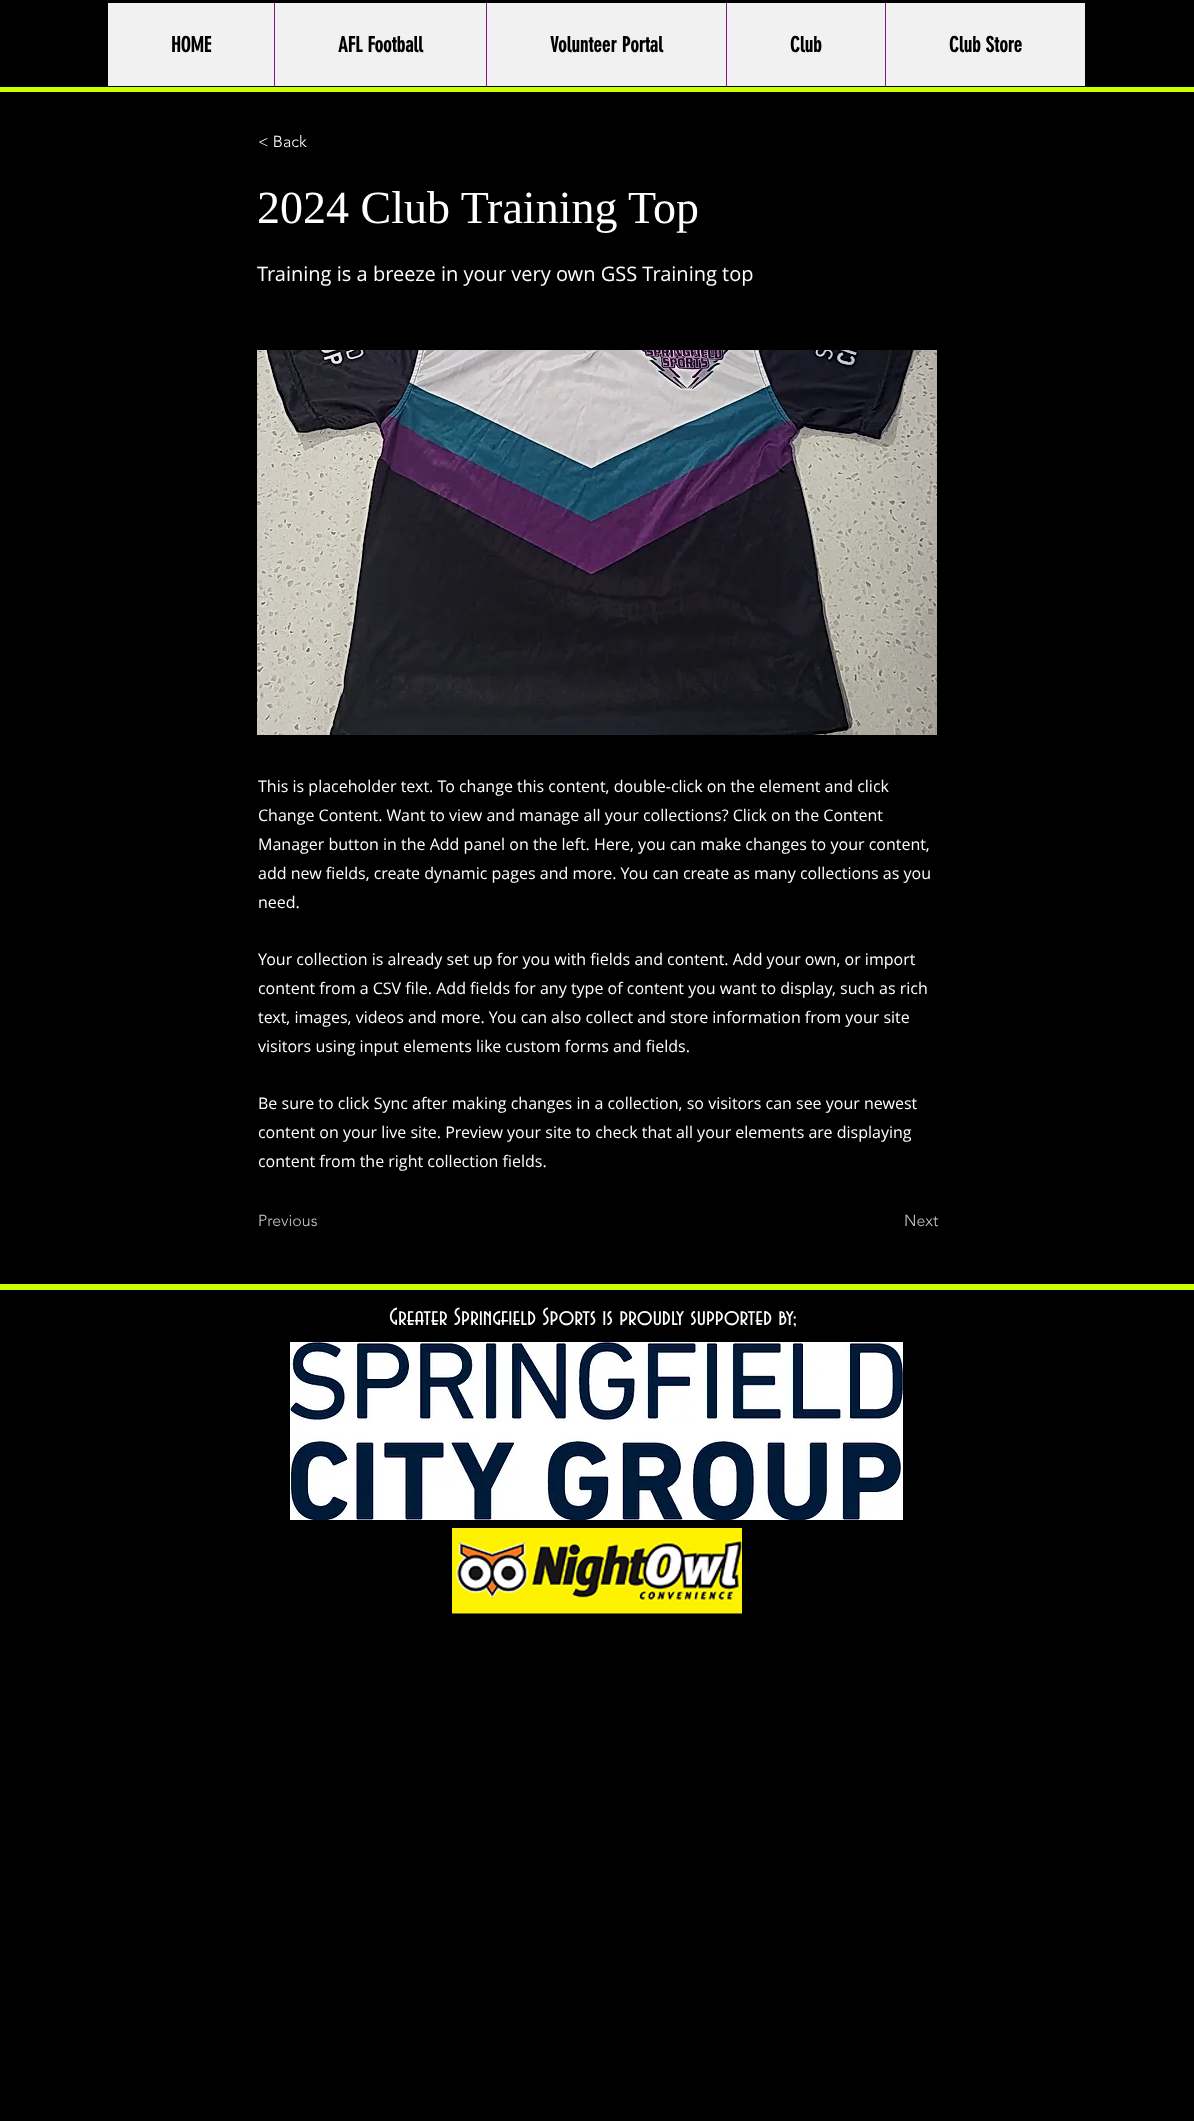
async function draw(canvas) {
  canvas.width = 1194
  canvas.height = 2121
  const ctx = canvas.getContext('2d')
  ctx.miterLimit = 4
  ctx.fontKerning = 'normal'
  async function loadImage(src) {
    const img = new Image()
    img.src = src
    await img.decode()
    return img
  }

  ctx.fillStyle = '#000'
  ctx.fillRect(0, 0, 1194, 2121)
  ctx.fillStyle = '#f1f1f1'
  ctx.fillRect(108, 3, 977, 83)
  ctx.font = 'bold 21px "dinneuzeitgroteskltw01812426"'
  ctx.fillStyle = '#000'
  ctx.fillText('HOME', 171, 52)
  ctx.fillStyle = '#821388'
  ctx.fillRect(274, 3, 1, 83)
  ctx.fillStyle = '#000'
  ctx.fillText('AFL Football', 338, 52)
  ctx.fillStyle = '#821388'
  ctx.fillRect(486, 3, 1, 83)
  ctx.fillStyle = '#000'
  ctx.fillText('Volunteer Portal', 550, 52)
  ctx.fillStyle = '#821388'
  ctx.fillRect(726, 3, 1, 83)
  ctx.fillStyle = '#000'
  ctx.fillText('Club', 790, 52)
  ctx.fillStyle = '#821388'
  ctx.fillRect(885, 3, 1, 83)
  ctx.fillStyle = '#000'
  ctx.fillText('Club Store', 949, 52)
  ctx.fillStyle = '#cf0'
  ctx.fillRect(0, 87, 1194, 5)
  ctx.font = '300 16px "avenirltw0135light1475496"'
  ctx.fillStyle = '#fff'
  ctx.fillText('< Back', 258, 147)
  ctx.font = '46px Liberation Serif'
  ctx.fillText('2024 Club Training Top', 257, 223)
  ctx.font = '20px Open Sans'
  ctx.fillText('Training is a breeze in your very own GSS Training top', 257, 281)
  ctx.drawImage(await loadImage('image0.png'), 257, 350, 680, 385)
  ctx.font = '16px Open Sans'
  ctx.fillText('This is placeholder text. To change this content, double-click on the element and click', 258, 792)
  ctx.fillText('Change Content. Want to view and manage all your collections? Click on the Content', 258, 821)
  ctx.fillText('Manager button in the Add panel on the left. Here, you can make changes to your content,', 258, 850)
  ctx.fillText('add new fields, create dynamic pages and more. You can create as many collections as you', 258, 879)
  ctx.fillText('need.', 258, 908)
  ctx.fillText('Your collection is already set up for you with fields and content. Add your own, or import', 258, 965)
  ctx.fillText('content from a CSV file. Add fields for any type of content you want to display, such as rich', 258, 994)
  ctx.fillText('text, images, videos and more. You can also collect and store information from your site', 258, 1023)
  ctx.fillText('visitors using input elements like custom forms and fields.', 258, 1052)
  ctx.fillText('Be sure to click Sync after making changes in a collection, so visitors can see your newest', 258, 1109)
  ctx.fillText('content on your live site. Preview your site to check that all your elements are displaying', 258, 1138)
  ctx.fillText('content from the right collection fields.', 258, 1167)
  ctx.font = '300 16px "avenirltw0135light1475496"'
  ctx.fillStyle = '#c7c7c7'
  ctx.fillText('Previous', 258, 1226)
  ctx.fillText('Next', 904, 1226)
  ctx.fillStyle = '#cf0'
  ctx.fillRect(0, 1284, 1194, 6)
  ctx.font = '26px "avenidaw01"'
  ctx.fillStyle = '#fff'
  ctx.fillText('Greater Springfield Sports is proudly supported by;', 389, 1325)
  ctx.drawImage(await loadImage('image1.png'), 290, 1342, 613, 178)
  ctx.drawImage(await loadImage('image2.png'), 452, 1528, 290, 86)
}

draw(document.querySelector('canvas'))
